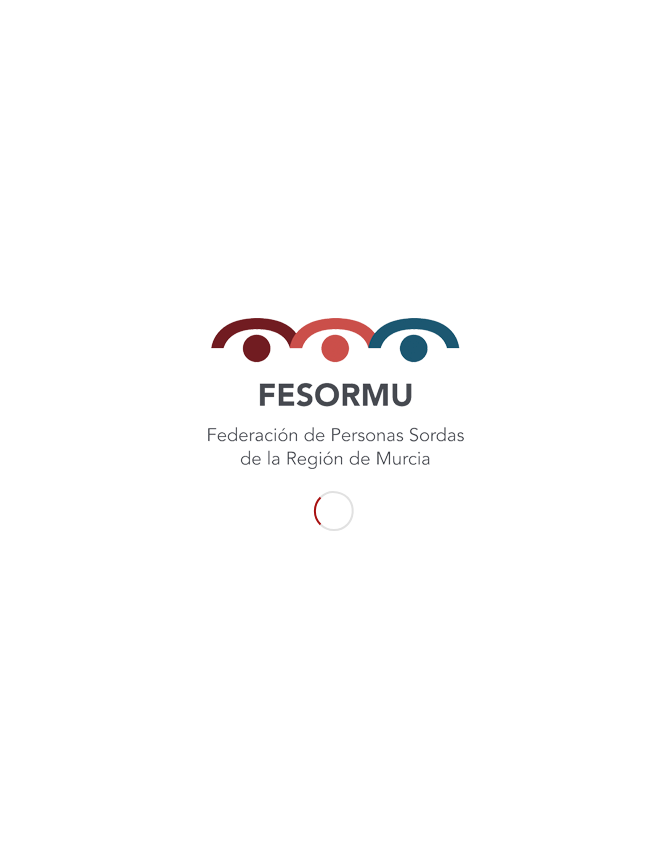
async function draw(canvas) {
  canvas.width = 668
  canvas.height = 845
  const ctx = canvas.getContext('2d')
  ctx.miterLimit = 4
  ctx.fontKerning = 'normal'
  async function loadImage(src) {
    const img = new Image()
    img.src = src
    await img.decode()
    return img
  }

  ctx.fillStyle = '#fff'
  ctx.fillRect(0, 0, 668, 845)
  ctx.drawImage(await loadImage('image0.png'), 208, 318, 256, 151)
  ctx.beginPath()
  ctx.moveTo(320.5, 497.5)
  ctx.bezierCurveTo(325, 493, 331.5, 491, 337.5, 492.5)
  ctx.bezierCurveTo(360, 497, 356.5, 530, 334, 530)
  ctx.bezierCurveTo(329, 530, 324, 528, 320.5, 524.5)
  ctx.strokeStyle = '#e1e1e1'
  ctx.lineWidth = 2
  ctx.stroke()
  ctx.beginPath()
  ctx.moveTo(320.5, 524.5)
  ctx.bezierCurveTo(313, 517, 313, 505, 320.5, 497.5)
  ctx.strokeStyle = '#a81010'
  ctx.stroke()
}

draw(document.querySelector('canvas'))
